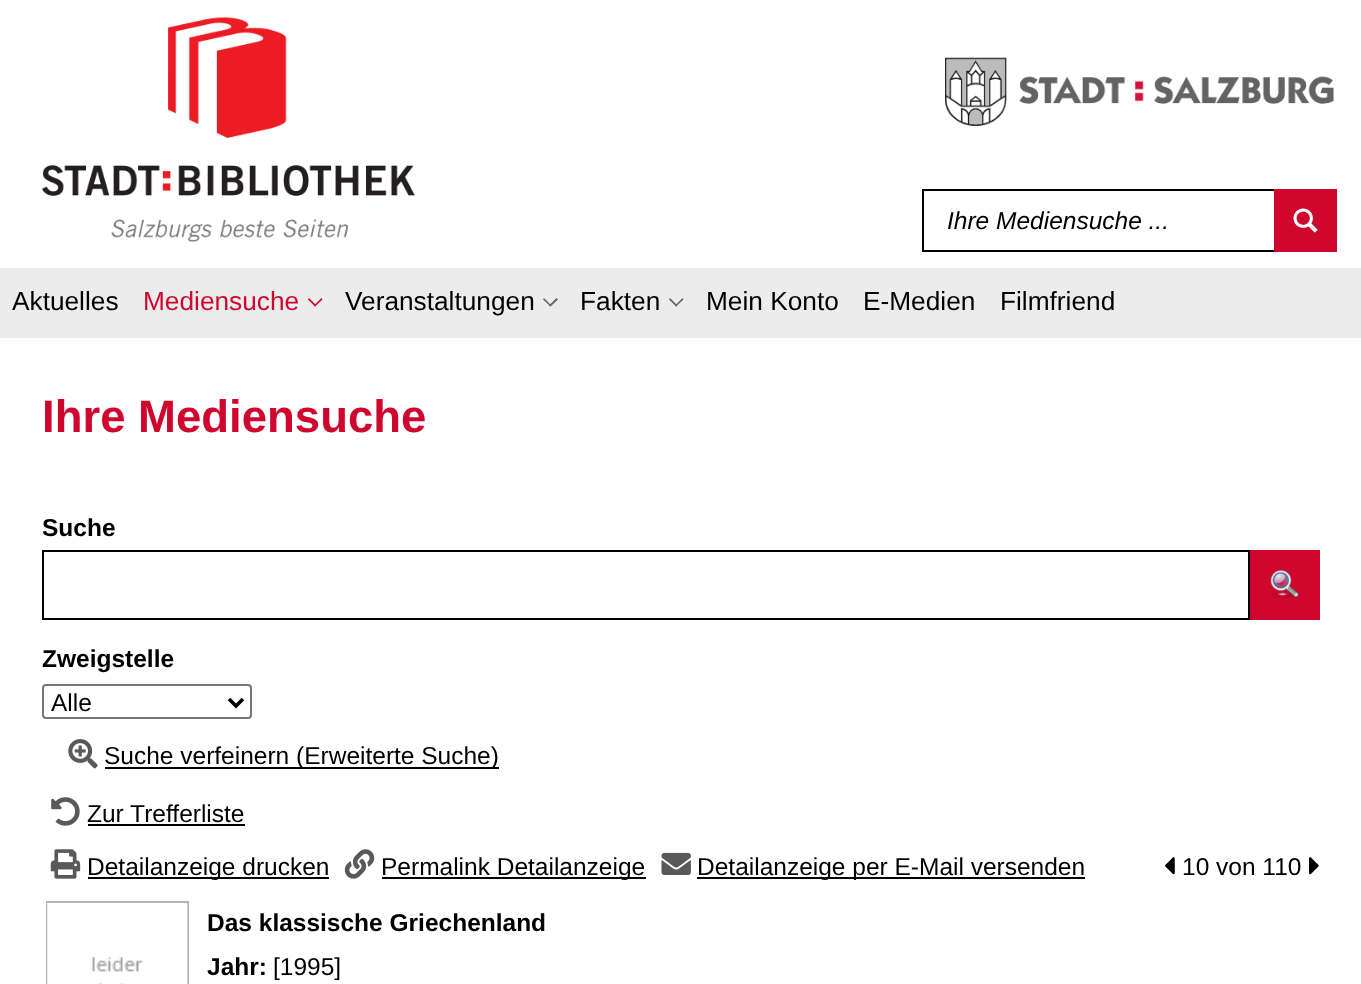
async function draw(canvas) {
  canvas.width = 1361
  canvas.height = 984
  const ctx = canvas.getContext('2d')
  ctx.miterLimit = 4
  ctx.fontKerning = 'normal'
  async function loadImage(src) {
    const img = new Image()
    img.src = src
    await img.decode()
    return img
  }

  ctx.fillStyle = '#fff'
  ctx.fillRect(0, 0, 1361, 984)
  ctx.drawImage(await loadImage('image0.png'), 42, 17, 373, 225)
  ctx.drawImage(await loadImage('image1.png'), 945, 57, 389, 69)
  ctx.strokeStyle = '#000'
  ctx.lineWidth = 2
  ctx.strokeRect(923, 190, 413, 61)
  ctx.font = 'italic 24.5px Liberation Sans'
  ctx.fillStyle = '#000'
  ctx.fillText('Ihre Mediensuche ...', 947, 229)
  ctx.fillStyle = '#cf072f'
  ctx.fillRect(1274, 189, 63, 63)
  ctx.drawImage(await loadImage('image2.png'), 1293, 208, 25, 25)
  ctx.fillStyle = '#ececec'
  ctx.fillRect(0, 268, 1361, 70)
  ctx.font = '26.25px Liberation Sans'
  ctx.fillStyle = '#000'
  ctx.fillText('Aktuelles', 12, 310)
  ctx.fillStyle = '#cf072f'
  ctx.fillText('Mediensuche', 143, 310)
  ctx.beginPath()
  ctx.moveTo(321.5, 298)
  ctx.lineTo(322.5, 299.5)
  ctx.lineTo(315, 306.5)
  ctx.lineTo(314, 305.5)
  ctx.closePath()
  ctx.fill()
  ctx.beginPath()
  ctx.moveTo(309, 298)
  ctx.lineTo(316.5, 305.5)
  ctx.lineTo(315, 306.5)
  ctx.lineTo(308, 299.5)
  ctx.closePath()
  ctx.fill()
  ctx.fillStyle = '#000'
  ctx.fillText('Veranstaltungen', 345, 310)
  ctx.fillStyle = '#666'
  ctx.beginPath()
  ctx.moveTo(556.5, 298)
  ctx.lineTo(558, 299.5)
  ctx.lineTo(550.5, 306.5)
  ctx.lineTo(549, 305.5)
  ctx.closePath()
  ctx.fill()
  ctx.beginPath()
  ctx.moveTo(544, 298)
  ctx.lineTo(551.5, 305.5)
  ctx.lineTo(550.5, 306.5)
  ctx.lineTo(543, 299.5)
  ctx.closePath()
  ctx.fill()
  ctx.fillStyle = '#000'
  ctx.fillText('Fakten', 580, 310)
  ctx.fillStyle = '#666'
  ctx.beginPath()
  ctx.moveTo(682.5, 298)
  ctx.lineTo(683.5, 299.5)
  ctx.lineTo(676, 306.5)
  ctx.lineTo(675, 305.5)
  ctx.closePath()
  ctx.fill()
  ctx.beginPath()
  ctx.moveTo(670, 298)
  ctx.lineTo(677.5, 305.5)
  ctx.lineTo(676, 306.5)
  ctx.lineTo(669, 299.5)
  ctx.closePath()
  ctx.fill()
  ctx.fillStyle = '#000'
  ctx.fillText('Mein Konto', 706, 310)
  ctx.fillText('E-Medien', 863, 310)
  ctx.fillText('Filmfriend', 1000, 310)
  ctx.font = 'bold 45.5px Liberation Sans'
  ctx.fillStyle = '#cf072f'
  ctx.fillText('Ihre Mediensuche', 42, 432)
  ctx.font = 'bold 24.5px Liberation Sans'
  ctx.fillStyle = '#000'
  ctx.fillText('Suche', 42, 536)
  ctx.strokeRect(43, 551, 1206, 68)
  ctx.fillStyle = '#cf072f'
  ctx.fillRect(1250, 550, 70, 70)
  ctx.drawImage(await loadImage('image3.png'), 1270, 570, 29, 28)
  ctx.fillStyle = '#000'
  ctx.fillText('Zweigstelle', 42, 667)
  ctx.beginPath()
  ctx.roundRect(43, 685, 208, 33, 3)
  ctx.strokeStyle = '#767676'
  ctx.stroke()
  ctx.beginPath()
  ctx.moveTo(229, 699)
  ctx.lineTo(236, 706)
  ctx.lineTo(243, 699)
  ctx.strokeStyle = '#000'
  ctx.lineWidth = 3.5
  ctx.stroke()
  ctx.font = '24.5px Liberation Sans'
  ctx.fillText('Alle', 51, 711)
  ctx.drawImage(await loadImage('image4.png'), 68, 739, 30, 30)
  ctx.fillRect(105, 767, 394, 2)
  ctx.fillText('Suche verfeinern (Erweiterte Suche)', 104, 764)
  ctx.drawImage(await loadImage('image5.png'), 51, 797, 29, 29)
  ctx.fillText('Zur Trefferliste', 87, 822)
  ctx.fillRect(88, 824, 157, 2)
  ctx.drawImage(await loadImage('image6.png'), 50, 849, 31, 30)
  ctx.fillRect(88, 877, 241, 2)
  ctx.fillText('Detailanzeige drucken', 87, 875)
  ctx.drawImage(await loadImage('image7.png'), 344, 849, 31, 30)
  ctx.fillRect(382, 877, 264, 2)
  ctx.fillText('Permalink Detailanzeige', 381, 875)
  ctx.drawImage(await loadImage('image8.png'), 661, 852, 30, 23)
  ctx.fillRect(697, 877, 388, 2)
  ctx.fillText('Detailanzeige per E-Mail versenden', 697, 875)
  ctx.drawImage(await loadImage('image9.png'), 1165, 857, 10, 18)
  ctx.fillText('10 von 110', 1182, 875)
  ctx.drawImage(await loadImage('image10.png'), 1309, 857, 10, 18)
  ctx.strokeStyle = '#b4b4b4'
  ctx.lineWidth = 2
  ctx.strokeRect(47, 902, 141, 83)
  ctx.drawImage(await loadImage('image11.png'), 47, 903, 141, 81)
  ctx.font = 'bold 24.5px Liberation Sans'
  ctx.fillText('Das klassische Griechenland', 207, 931)
  ctx.fillText('Jahr:', 207, 975)
  ctx.font = '24.5px Liberation Sans'
  ctx.fillText('[1995]', 273, 975)
}

draw(document.querySelector('canvas'))
